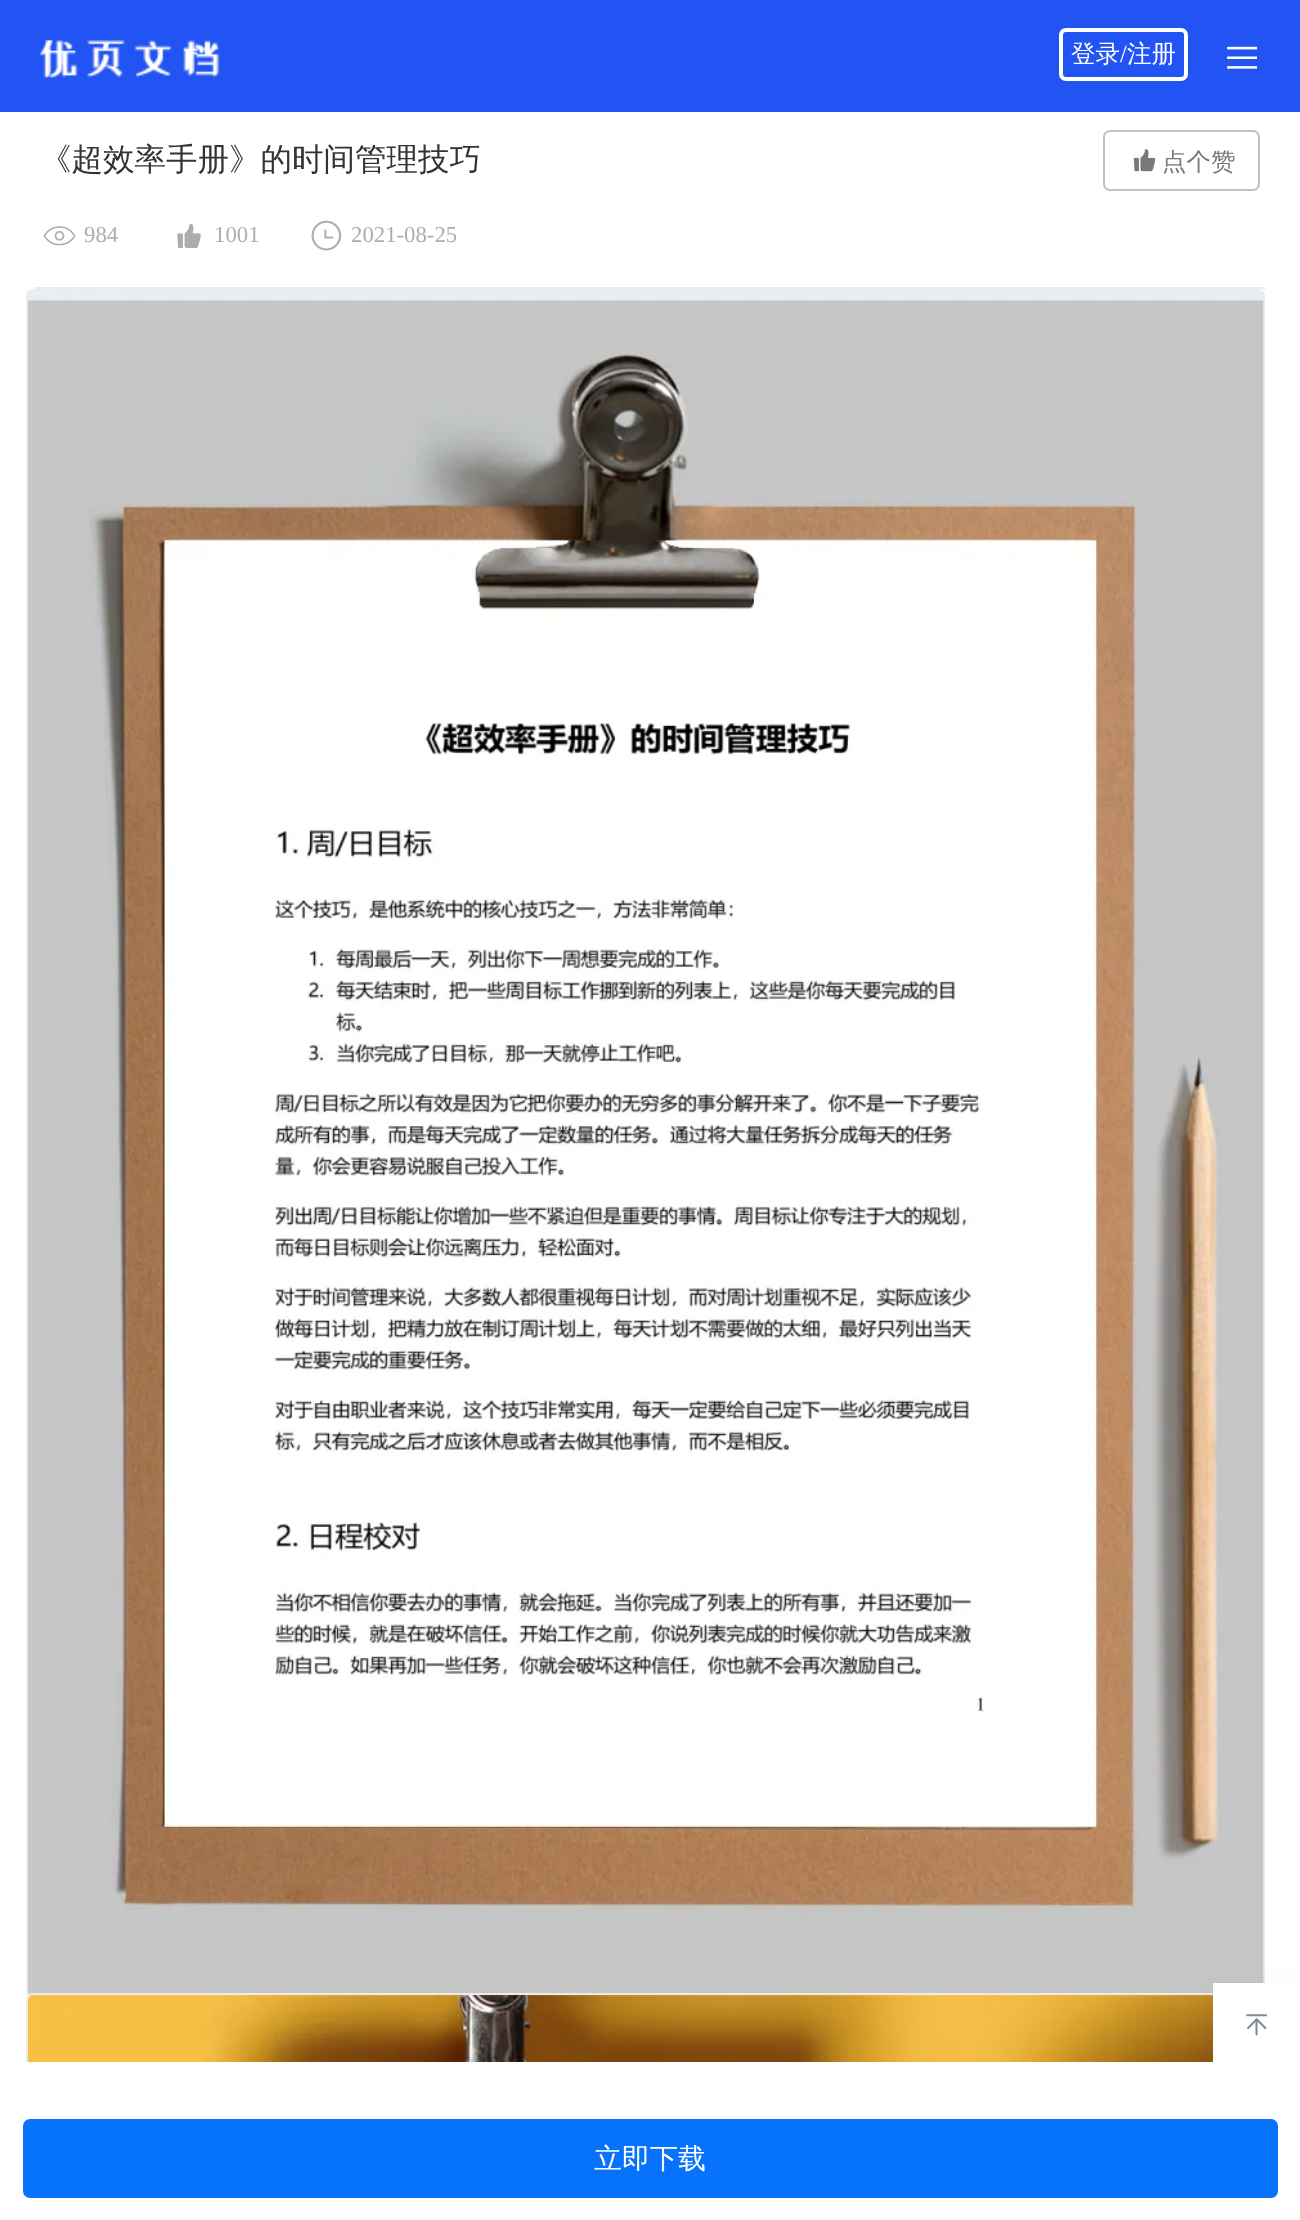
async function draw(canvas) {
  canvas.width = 1300
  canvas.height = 2220
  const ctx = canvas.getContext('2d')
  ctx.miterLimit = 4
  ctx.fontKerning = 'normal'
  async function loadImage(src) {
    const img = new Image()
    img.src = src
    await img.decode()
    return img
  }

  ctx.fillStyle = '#fff'
  ctx.fillRect(0, 0, 1300, 2220)
  ctx.fillStyle = '#2254f4'
  ctx.fillRect(0, 0, 1300, 112)
  ctx.drawImage(await loadImage('image0.png'), 39, 39, 181, 39)
  ctx.beginPath()
  ctx.roundRect(1061, 30, 125, 49, 5)
  ctx.strokeStyle = '#fff'
  ctx.lineWidth = 4
  ctx.stroke()
  ctx.font = '500 24.5px WenQuanYi Zen Hei'
  ctx.fillStyle = '#fff'
  ctx.fillText('登录', 1071, 62)
  ctx.font = '24.5px Liberation Serif'
  ctx.fillText('/', 1120, 62)
  ctx.font = '500 24.5px WenQuanYi Zen Hei'
  ctx.fillText('注册', 1127, 62)
  ctx.drawImage(await loadImage('image1.png'), 1227, 46, 30, 23)
  ctx.fillStyle = '#e6ecf3'
  ctx.fillRect(35, 287, 1230, 2)
  ctx.font = '500 31.5px WenQuanYi Zen Hei'
  ctx.fillStyle = '#333'
  ctx.fillText('《超效率手册》的时间管理技巧', 40, 170)
  ctx.beginPath()
  ctx.roundRect(1104, 131, 155, 59, 6)
  ctx.strokeStyle = '#c2c2c2'
  ctx.lineWidth = 2
  ctx.stroke()
  ctx.drawImage(await loadImage('image2.png'), 1133, 149, 23, 23)
  ctx.font = '500 24.5px WenQuanYi Zen Hei'
  ctx.fillStyle = '#797979'
  ctx.fillText('点个赞', 1162, 170)
  ctx.drawImage(await loadImage('image3.png'), 43, 226, 33, 20)
  ctx.font = '22.75px Liberation Serif'
  ctx.fillStyle = '#aeacac'
  ctx.fillText('984', 84, 242)
  ctx.drawImage(await loadImage('image4.png'), 177, 223, 24, 25)
  ctx.fillText('1001', 214, 242)
  ctx.drawImage(await loadImage('image5.png'), 311, 220, 31, 31)
  ctx.fillText('2021-08-25', 351, 242)
  ctx.beginPath()
  ctx.roundRect(27, 290, 1237, 1708, 6)
  ctx.strokeStyle = '#ececec'
  ctx.stroke()
  ctx.drawImage(await loadImage('image6.png'), 28, 291, 1236, 1706)
  ctx.beginPath()
  ctx.roundRect(27, 1994, 1237, 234, 6)
  ctx.stroke()
  ctx.drawImage(await loadImage('image7.png'), 28, 1995, 1185, 67)
  ctx.fillStyle = '#2a2a2a1a'
  ctx.filter = 'blur(13px)'
  ctx.beginPath()
  ctx.rect(1213, 1993, 87, 128)
  ctx.fill()
  ctx.filter = 'none'
  ctx.fillStyle = '#fff'
  ctx.fillRect(26, 2062, 1274, 158)
  ctx.fillStyle = '#0773fc'
  ctx.beginPath()
  ctx.roundRect(23, 2119, 1255, 79, 7)
  ctx.fill()
  ctx.font = '500 28px WenQuanYi Zen Hei'
  ctx.fillStyle = '#fff'
  ctx.fillText('立即下载', 594, 2168)
  ctx.fillRect(1213, 1983, 87, 79)
  ctx.drawImage(await loadImage('image8.png'), 1246, 2014, 22, 22)
}

draw(document.querySelector('canvas'))
